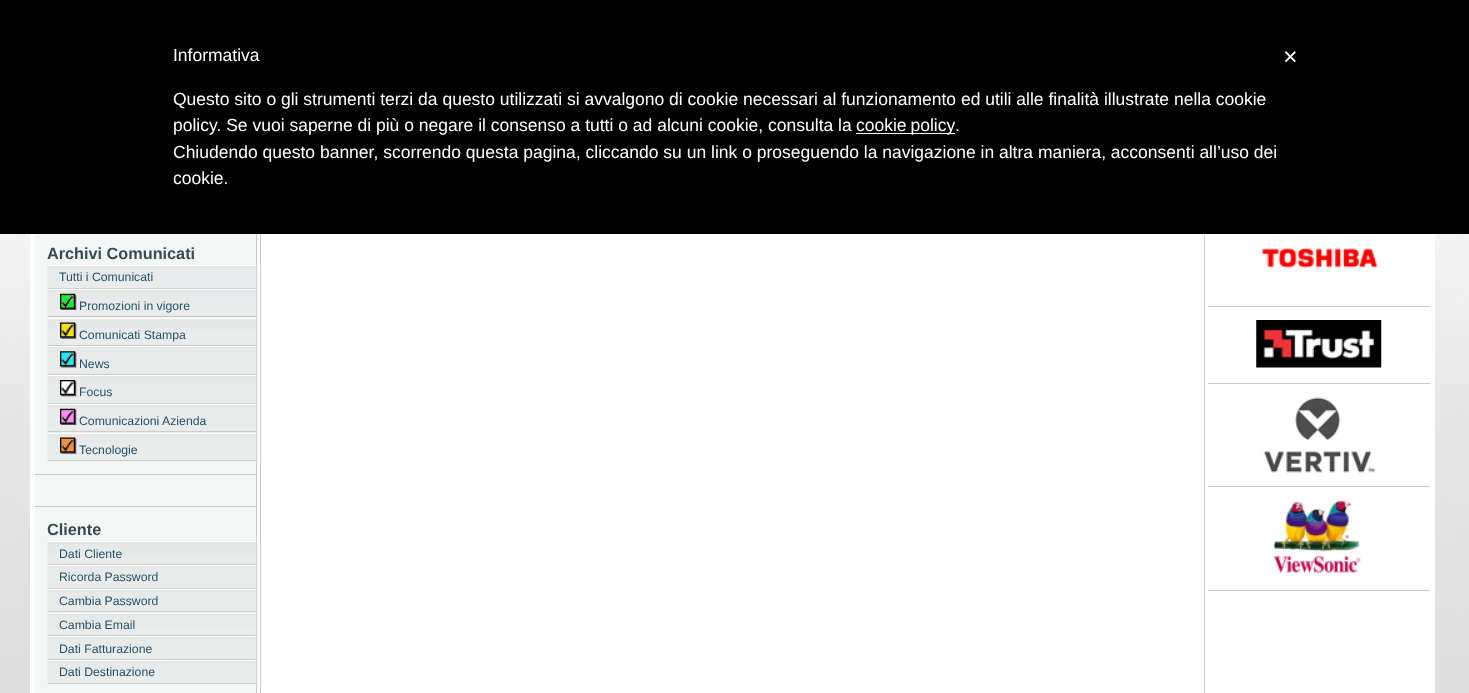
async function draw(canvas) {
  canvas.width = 1469
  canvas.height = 693
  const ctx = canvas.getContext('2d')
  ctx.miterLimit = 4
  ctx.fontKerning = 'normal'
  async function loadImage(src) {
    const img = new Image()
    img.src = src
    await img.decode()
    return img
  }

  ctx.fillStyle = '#fff'
  ctx.fillRect(0, 0, 1469, 693)
  ctx.drawImage(await loadImage('image0.png'), 0, 234, 1469, 459)
  ctx.fillRect(30, 234, 1405, 459)
  ctx.fillStyle = '#ccc'
  ctx.fillRect(260, 229, 1, 464)
  ctx.fillStyle = '#f5f7f7'
  ctx.fillRect(35, 234, 223, 459)
  ctx.fillStyle = '#ccc'
  ctx.fillRect(256, 231, 1, 462)
  ctx.fillRect(1204, 229, 1, 464)
  ctx.fillStyle = '#000'
  ctx.fillRect(0, 0, 1469, 234)
  ctx.font = '17.5px Liberation Sans'
  ctx.fillStyle = '#fff'
  ctx.fillText('Informativa', 173, 61)
  ctx.fillText('Questo sito o gli strumenti terzi da questo utilizzati si avvalgono di cookie necessari al funzionamento ed utili alle finalità illustrate nella cookie', 173, 105)
  ctx.fillText('policy. Se vuoi saperne di più o negare il consenso a tutti o ad alcuni cookie, consulta la', 173, 131)
  ctx.fillRect(856, 133, 99, 1)
  ctx.wordSpacing = '-1px'
  ctx.fillText('cookie policy', 856, 131)
  ctx.wordSpacing = '0px'
  ctx.fillText('.', 955, 131)
  ctx.fillText('Chiudendo questo banner, scorrendo questa pagina, cliccando su un link o proseguendo la navigazione in altra maniera, acconsenti all’uso dei', 173, 158)
  ctx.fillText('cookie.', 173, 184)
  ctx.font = '25px Liberation Sans'
  ctx.fillText('×', 1283, 65)
  ctx.fillStyle = '#ccc'
  ctx.fillRect(35, 474, 221, 1)
  ctx.font = 'bold 16.25px Liberation Sans'
  ctx.fillStyle = '#334d55'
  ctx.fillText('Archivi Comunicati', 47, 259)
  ctx.drawImage(await loadImage('image1.png'), 47, 265, 210, 24)
  ctx.fillStyle = '#fff'
  ctx.fillRect(48, 265, 208, 1)
  ctx.fillStyle = '#ccc'
  ctx.fillRect(48, 288, 208, 1)
  ctx.font = '12.25px Liberation Sans'
  ctx.fillStyle = '#21536a'
  ctx.fillText('Tutti i Comunicati', 59, 281)
  ctx.drawImage(await loadImage('image2.png'), 47, 288, 210, 30)
  ctx.fillStyle = '#fff'
  ctx.fillRect(48, 289, 208, 1)
  ctx.fillStyle = '#ccc'
  ctx.fillRect(48, 316, 208, 1)
  ctx.drawImage(await loadImage('image3.png'), 60, 293, 17, 17)
  ctx.fillStyle = '#21536a'
  ctx.fillText('Promozioni in vigore', 79, 310)
  ctx.drawImage(await loadImage('image4.png'), 47, 318, 210, 29)
  ctx.fillStyle = '#fff'
  ctx.fillRect(48, 318, 208, 1)
  ctx.fillStyle = '#ccc'
  ctx.fillRect(48, 345, 208, 1)
  ctx.drawImage(await loadImage('image5.png'), 60, 322, 17, 17)
  ctx.fillStyle = '#21536a'
  ctx.fillText('Comunicati Stampa', 79, 339)
  ctx.drawImage(await loadImage('image6.png'), 47, 346, 210, 29)
  ctx.fillStyle = '#fff'
  ctx.fillRect(48, 346, 208, 1)
  ctx.fillStyle = '#ccc'
  ctx.fillRect(48, 374, 208, 1)
  ctx.drawImage(await loadImage('image7.png'), 60, 351, 17, 17)
  ctx.fillStyle = '#21536a'
  ctx.fillText('News', 79, 368)
  ctx.drawImage(await loadImage('image8.png'), 47, 375, 210, 29)
  ctx.fillStyle = '#fff'
  ctx.fillRect(48, 375, 208, 1)
  ctx.fillStyle = '#ccc'
  ctx.fillRect(48, 403, 208, 1)
  ctx.drawImage(await loadImage('image9.png'), 60, 380, 17, 17)
  ctx.fillStyle = '#21536a'
  ctx.fillText('Focus', 79, 396)
  ctx.drawImage(await loadImage('image10.png'), 47, 403, 210, 30)
  ctx.fillStyle = '#fff'
  ctx.fillRect(48, 404, 208, 1)
  ctx.fillStyle = '#ccc'
  ctx.fillRect(48, 431, 208, 1)
  ctx.drawImage(await loadImage('image11.png'), 60, 408, 17, 17)
  ctx.fillStyle = '#21536a'
  ctx.fillText('Comunicazioni Azienda', 79, 425)
  ctx.drawImage(await loadImage('image4.png'), 47, 433, 210, 29)
  ctx.fillStyle = '#fff'
  ctx.fillRect(48, 433, 208, 1)
  ctx.fillStyle = '#ccc'
  ctx.fillRect(48, 460, 208, 1)
  ctx.drawImage(await loadImage('image12.png'), 60, 437, 17, 17)
  ctx.fillStyle = '#21536a'
  ctx.fillText('Tecnologie', 79, 454)
  ctx.fillStyle = '#ccc'
  ctx.fillRect(35, 506, 221, 1)
  ctx.font = 'bold 16.25px Liberation Sans'
  ctx.fillStyle = '#334d55'
  ctx.fillText('Cliente', 47, 535)
  ctx.drawImage(await loadImage('image13.png'), 47, 541, 210, 24)
  ctx.fillStyle = '#fff'
  ctx.fillRect(48, 541, 208, 1)
  ctx.fillStyle = '#ccc'
  ctx.fillRect(48, 564, 208, 1)
  ctx.font = '12.25px Liberation Sans'
  ctx.fillStyle = '#21536a'
  ctx.fillText('Dati Cliente', 59, 558)
  ctx.drawImage(await loadImage('image1.png'), 47, 565, 210, 24)
  ctx.fillStyle = '#fff'
  ctx.fillRect(48, 565, 208, 1)
  ctx.fillStyle = '#ccc'
  ctx.fillRect(48, 588, 208, 1)
  ctx.fillStyle = '#21536a'
  ctx.fillText('Ricorda Password', 59, 581)
  ctx.drawImage(await loadImage('image14.png'), 47, 588, 210, 25)
  ctx.fillStyle = '#fff'
  ctx.fillRect(48, 589, 208, 1)
  ctx.fillStyle = '#ccc'
  ctx.fillRect(48, 611, 208, 1)
  ctx.fillStyle = '#21536a'
  ctx.fillText('Cambia Password', 59, 605)
  ctx.drawImage(await loadImage('image15.png'), 47, 613, 210, 23)
  ctx.fillStyle = '#fff'
  ctx.fillRect(48, 613, 208, 1)
  ctx.fillStyle = '#ccc'
  ctx.fillRect(48, 635, 208, 1)
  ctx.fillStyle = '#21536a'
  ctx.fillText('Cambia Email', 59, 629)
  ctx.drawImage(await loadImage('image13.png'), 47, 636, 210, 24)
  ctx.fillStyle = '#fff'
  ctx.fillRect(48, 636, 208, 1)
  ctx.fillStyle = '#ccc'
  ctx.fillRect(48, 659, 208, 1)
  ctx.fillStyle = '#21536a'
  ctx.fillText('Dati Fatturazione', 59, 653)
  ctx.drawImage(await loadImage('image1.png'), 47, 660, 210, 24)
  ctx.fillStyle = '#fff'
  ctx.fillRect(48, 660, 208, 1)
  ctx.fillStyle = '#ccc'
  ctx.fillRect(48, 683, 208, 1)
  ctx.fillStyle = '#21536a'
  ctx.fillText('Dati Destinazione', 59, 676)
  ctx.fillStyle = '#ccc'
  ctx.fillRect(1208, 306, 222, 1)
  ctx.drawImage(await loadImage('image16.png'), 1262, 248, 116, 20)
  ctx.fillRect(1208, 383, 222, 1)
  ctx.drawImage(await loadImage('image17.png'), 1256, 320, 126, 48)
  ctx.fillRect(1208, 486, 222, 1)
  ctx.drawImage(await loadImage('image18.png'), 1263, 397, 113, 76)
  ctx.fillRect(1208, 590, 222, 1)
  ctx.drawImage(await loadImage('image19.png'), 1273, 500, 89, 74)
}

draw(document.querySelector('canvas'))
